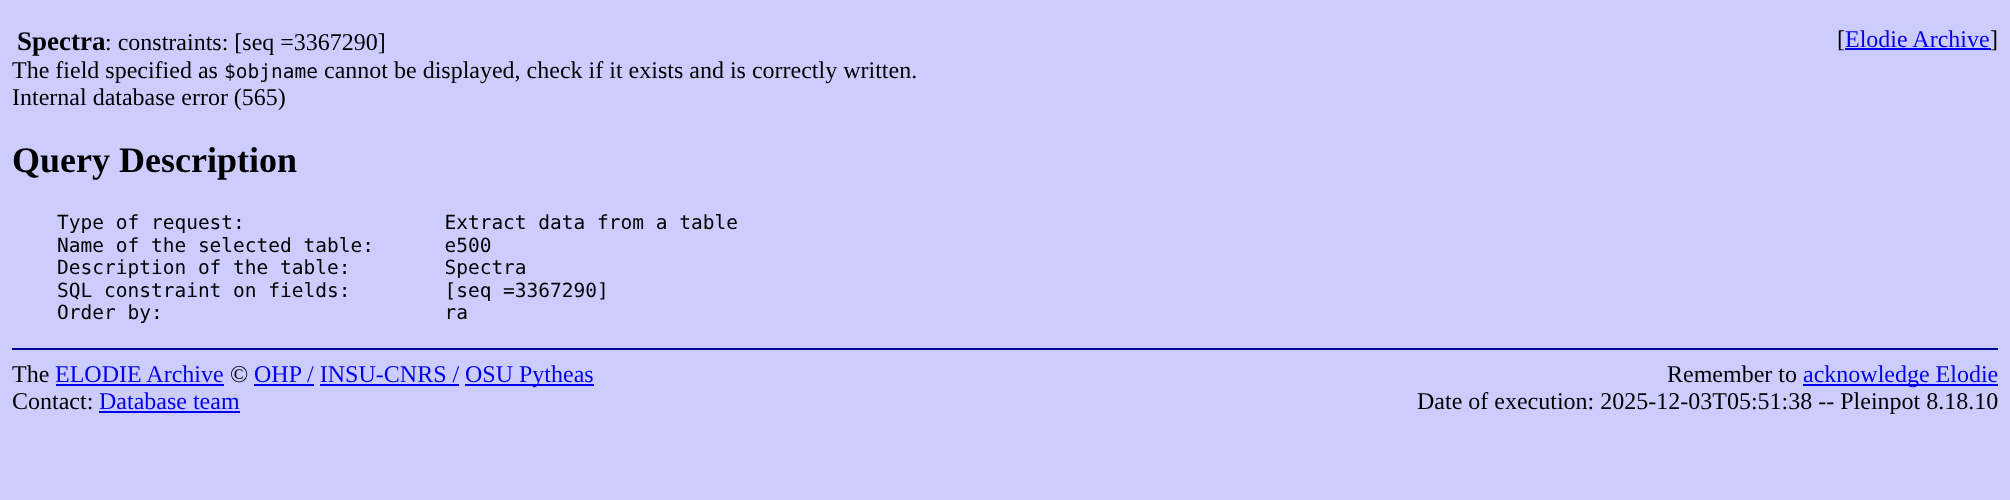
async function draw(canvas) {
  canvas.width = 2010
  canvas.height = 500
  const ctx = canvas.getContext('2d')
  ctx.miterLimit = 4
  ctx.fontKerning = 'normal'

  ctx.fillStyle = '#ccf'
  ctx.fillRect(0, 0, 2010, 500)
  ctx.font = 'bold 27px Liberation Serif'
  ctx.fillStyle = '#000'
  ctx.fillText('Spectra', 17, 50)
  ctx.font = '24px Liberation Serif'
  ctx.fillText(': constraints: [seq =3367290]', 105, 50)
  ctx.fillText('[', 1837, 47)
  ctx.fillStyle = '#00e'
  ctx.fillText('Elodie Archive', 1845, 47)
  ctx.fillRect(1845, 48, 146, 2)
  ctx.fillStyle = '#000'
  ctx.fillText(']', 1990, 47)
  ctx.fillText('The field specified as', 12, 78)
  ctx.font = '19.5px DejaVu Sans Mono'
  ctx.fillText('$objname', 224, 78)
  ctx.font = '24px Liberation Serif'
  ctx.fillText('cannot be displayed, check if it exists and is correctly written.', 324, 78)
  ctx.fillText('Internal database error (565)', 12, 105)
  ctx.font = 'bold 36px Liberation Serif'
  ctx.fillText('Query Description', 12, 172)
  ctx.font = '19.5px DejaVu Sans Mono'
  ctx.fillText('Type of request:                 Extract data from a table', 57, 229)
  ctx.fillText('Name of the selected table:      e500', 57, 252)
  ctx.fillText('Description of the table:        Spectra', 57, 274)
  ctx.fillText('SQL constraint on fields:        [seq =3367290]', 57, 297)
  ctx.fillText('Order by:                        ra', 57, 319)
  ctx.fillStyle = '#009'
  ctx.fillRect(12, 348, 1986, 2)
  ctx.font = '24px Liberation Serif'
  ctx.fillStyle = '#000'
  ctx.fillText('The', 12, 382)
  ctx.fillStyle = '#00e'
  ctx.fillText('ELODIE Archive', 55, 382)
  ctx.fillRect(56, 384, 168, 2)
  ctx.fillStyle = '#000'
  ctx.fillText('©', 230, 382)
  ctx.fillStyle = '#00e'
  ctx.fillText('OHP / INSU-CNRS /', 254, 382)
  ctx.fillRect(254, 384, 60, 2)
  ctx.fillRect(465, 384, 129, 2)
  ctx.fillText('OSU Pytheas', 465, 382)
  ctx.fillStyle = '#000'
  ctx.fillText('Remember to', 1667, 382)
  ctx.fillStyle = '#00e'
  ctx.fillRect(1803, 384, 195, 2)
  ctx.fillText('acknowledge Elodie', 1803, 382)
  ctx.fillRect(320, 384, 139, 2)
  ctx.fillStyle = '#000'
  ctx.fillText('Contact:', 12, 409)
  ctx.fillStyle = '#00e'
  ctx.fillText('Database team', 99, 409)
  ctx.fillRect(99, 411, 141, 2)
  ctx.fillStyle = '#000'
  ctx.fillText('Date of execution: 2025-12-03T05:51:38 -- Pleinpot 8.18.10', 1417, 409)
}

draw(document.querySelector('canvas'))
